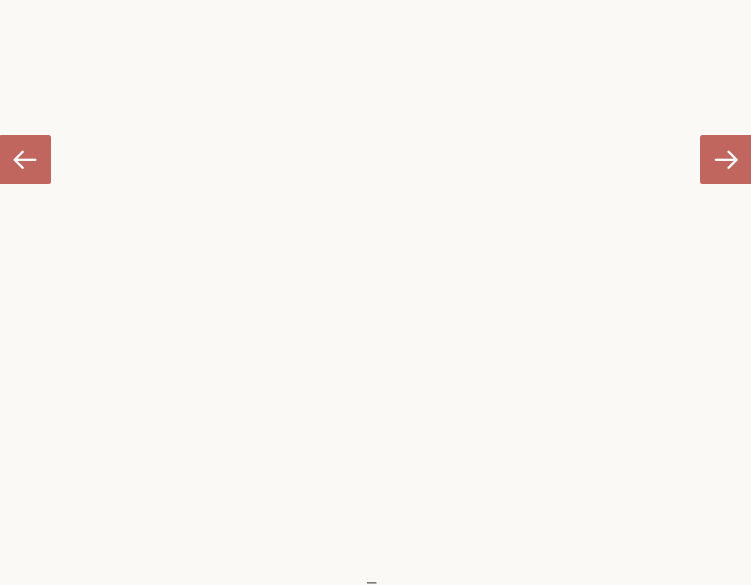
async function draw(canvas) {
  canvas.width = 751
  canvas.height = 585
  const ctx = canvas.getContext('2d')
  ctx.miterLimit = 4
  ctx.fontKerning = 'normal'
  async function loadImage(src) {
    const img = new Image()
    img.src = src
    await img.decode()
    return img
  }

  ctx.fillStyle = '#faf9f6'
  ctx.fillRect(0, 0, 751, 585)
  ctx.fillStyle = '#c1655f'
  ctx.beginPath()
  ctx.roundRect(-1, 135, 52, 49, 2.5)
  ctx.fill()
  ctx.drawImage(await loadImage('image0.png'), 13, 150, 24, 19)
  ctx.beginPath()
  ctx.roundRect(700, 135, 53, 49, 2.5)
  ctx.fill()
  ctx.drawImage(await loadImage('image1.png'), 714, 150, 24, 19)
  ctx.font = '38px Abril Fatface'
  ctx.fillStyle = '#4a4a4a'
  ctx.fillText('-', 365, 594)
}

draw(document.querySelector('canvas'))
